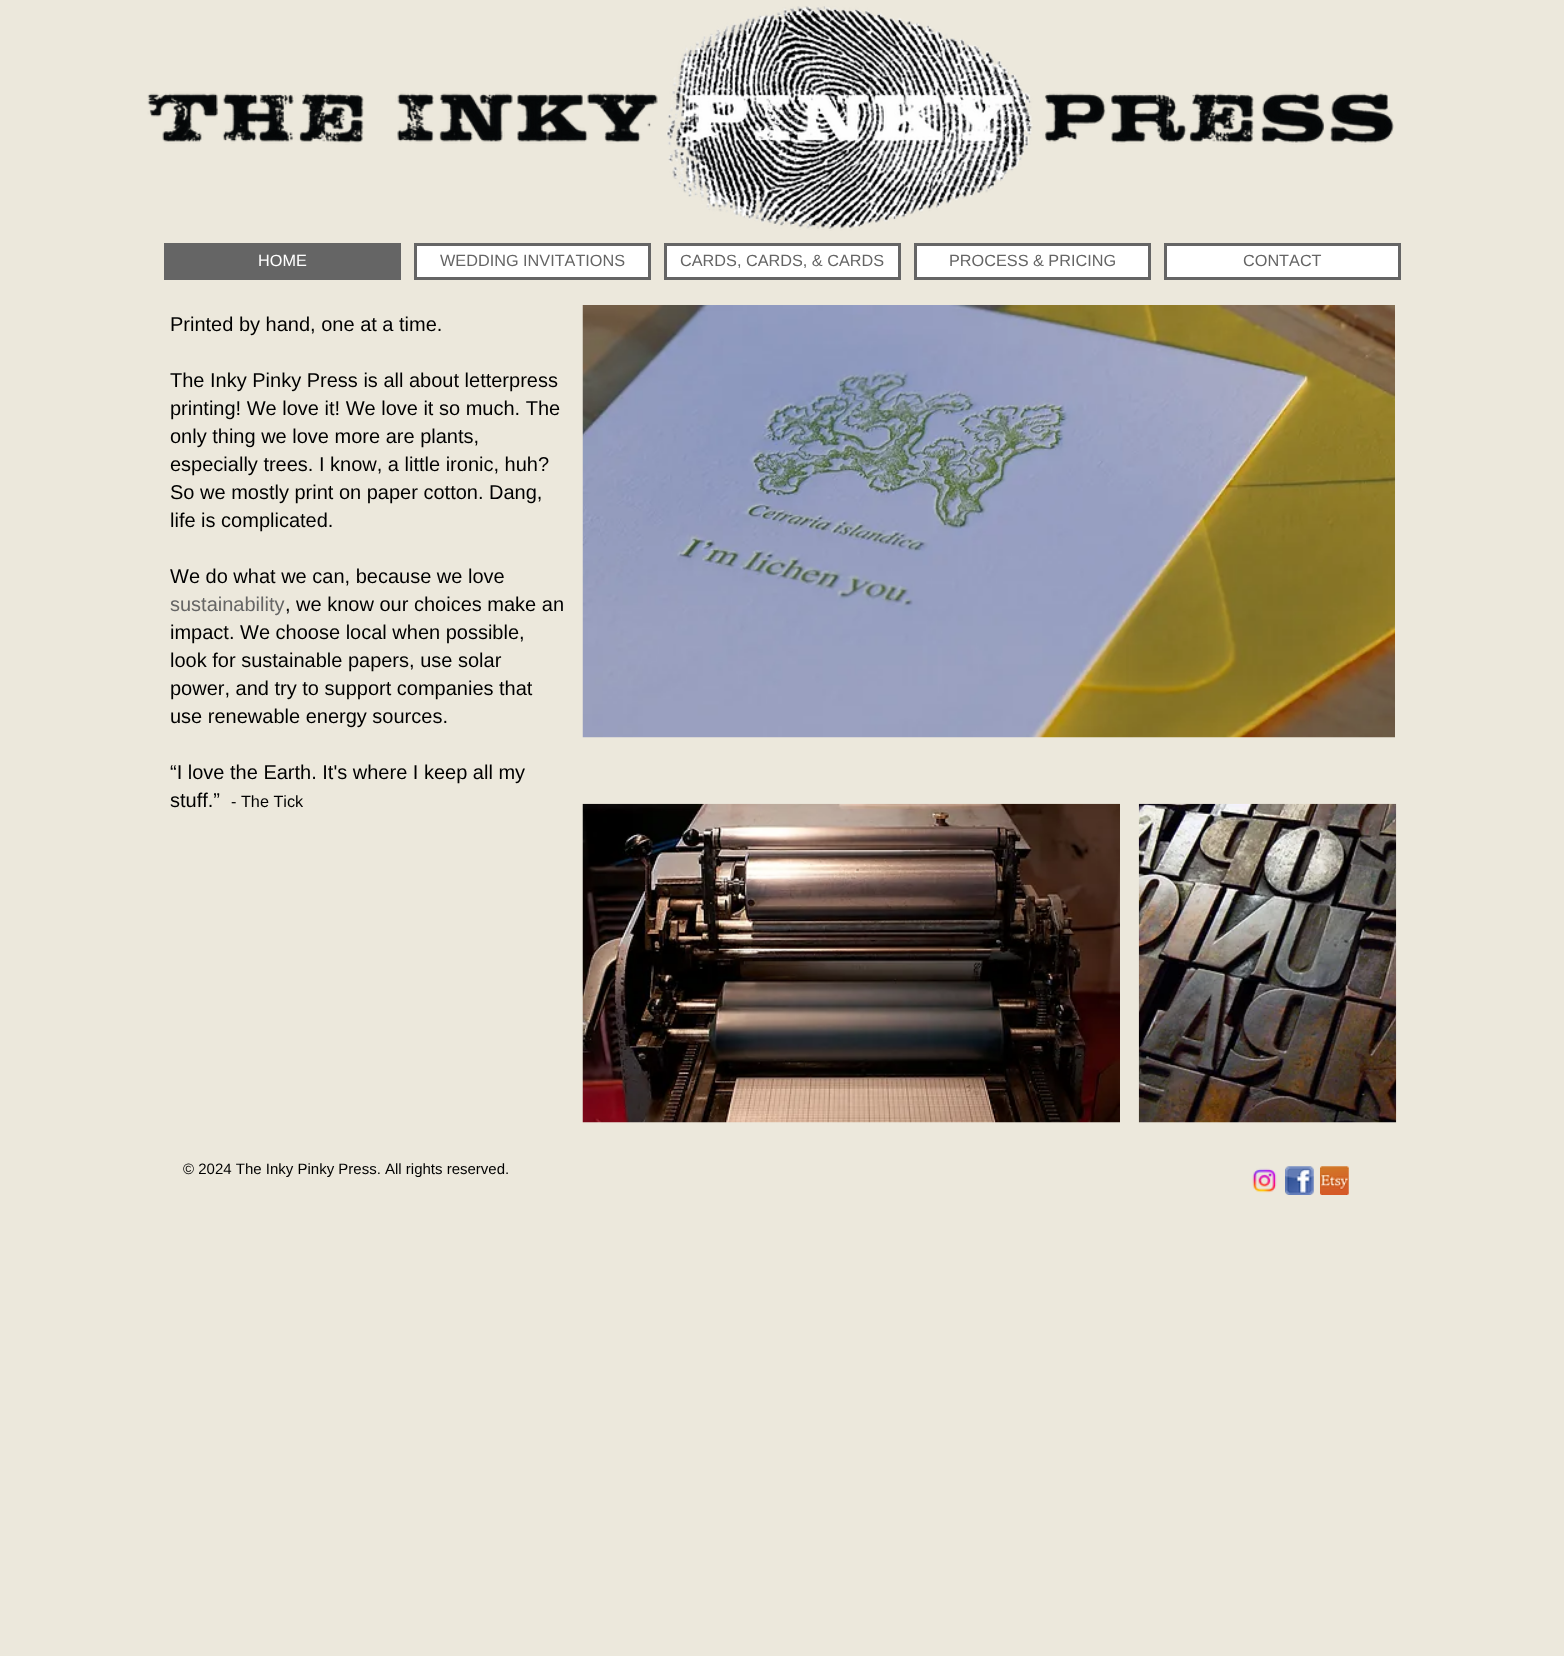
async function draw(canvas) {
  canvas.width = 1564
  canvas.height = 1656
  const ctx = canvas.getContext('2d')
  ctx.miterLimit = 4
  ctx.fontKerning = 'none'
  async function loadImage(src) {
    const img = new Image()
    img.src = src
    await img.decode()
    return img
  }

  ctx.fillStyle = '#ece8dc'
  ctx.fillRect(0, 0, 1564, 1656)
  ctx.fillStyle = '#656565'
  ctx.fillRect(164, 243, 237, 37)
  ctx.font = '16.25px Liberation Sans'
  ctx.fillStyle = '#fff'
  ctx.fillText('HOME', 258, 266)
  ctx.beginPath()
  ctx.rect(415.5, 244.5, 234, 34)
  ctx.fill()
  ctx.strokeStyle = '#656565'
  ctx.lineWidth = 3
  ctx.stroke()
  ctx.fillStyle = '#656565'
  ctx.fillText('WEDDING INVITATIONS', 440, 266)
  ctx.fillStyle = '#fff'
  ctx.beginPath()
  ctx.rect(665.5, 244.5, 234, 34)
  ctx.fill()
  ctx.stroke()
  ctx.fillStyle = '#656565'
  ctx.fillText('CARDS, CARDS, & CARDS', 680, 266)
  ctx.fillStyle = '#fff'
  ctx.beginPath()
  ctx.rect(915.5, 244.5, 234, 34)
  ctx.fill()
  ctx.stroke()
  ctx.fillStyle = '#656565'
  ctx.fillText('PROCESS & PRICING', 949, 266)
  ctx.fillStyle = '#fff'
  ctx.beginPath()
  ctx.rect(1165.5, 244.5, 234, 34)
  ctx.fill()
  ctx.stroke()
  ctx.fillStyle = '#656565'
  ctx.fillText('CONTACT', 1243, 266)
  ctx.drawImage(await loadImage('image0.png'), 147, 6, 1247, 225)
  ctx.font = '20px Liberation Sans'
  ctx.fillStyle = '#000'
  ctx.fillText('Printed by hand, one at a time.', 170, 331)
  ctx.fillText('The Inky Pinky Press is all about letterpress', 170, 387)
  ctx.fillText('printing! We love it! We love it so much. The', 170, 415)
  ctx.fillText('only thing we love more are plants,', 170, 443)
  ctx.fillText('especially trees. I know, a little ironic, huh?', 170, 471)
  ctx.fillText('So we mostly print on paper cotton. Dang,', 170, 499)
  ctx.fillText('life is complicated.', 170, 527)
  ctx.fillText('We do what we can, because we love', 170, 583)
  ctx.fillStyle = '#656565'
  ctx.fillText('sustainability', 170, 611)
  ctx.fillStyle = '#000'
  ctx.fillText(', we know our choices make an', 285, 611)
  ctx.fillText('impact. We choose local when possible,', 170, 639)
  ctx.fillText('look for sustainable papers, use solar', 170, 667)
  ctx.fillText('power, and try to support companies that', 170, 695)
  ctx.fillText('use renewable energy sources.', 170, 723)
  ctx.fillText('“I love the Earth. It\'s where I keep all my', 170, 779)
  ctx.fillText('stuff.”', 170, 807)
  ctx.font = '16.25px Liberation Sans'
  ctx.fillText('- The Tick', 231, 807)
  ctx.drawImage(await loadImage('image1.png'), 582, 305, 813, 433)
  ctx.drawImage(await loadImage('image2.png'), 582, 803, 538, 320)
  ctx.drawImage(await loadImage('image3.png'), 1138, 803, 259, 320)
  ctx.font = '15px Liberation Sans'
  ctx.fillText('© 2024 The Inky Pinky Press. All rights reserved.', 183, 1174)
  ctx.drawImage(await loadImage('image4.png'), 1252, 1168, 25, 25)
  ctx.drawImage(await loadImage('image5.png'), 1285, 1166, 29, 29)
  ctx.drawImage(await loadImage('image6.png'), 1320, 1166, 29, 29)
}

draw(document.querySelector('canvas'))
